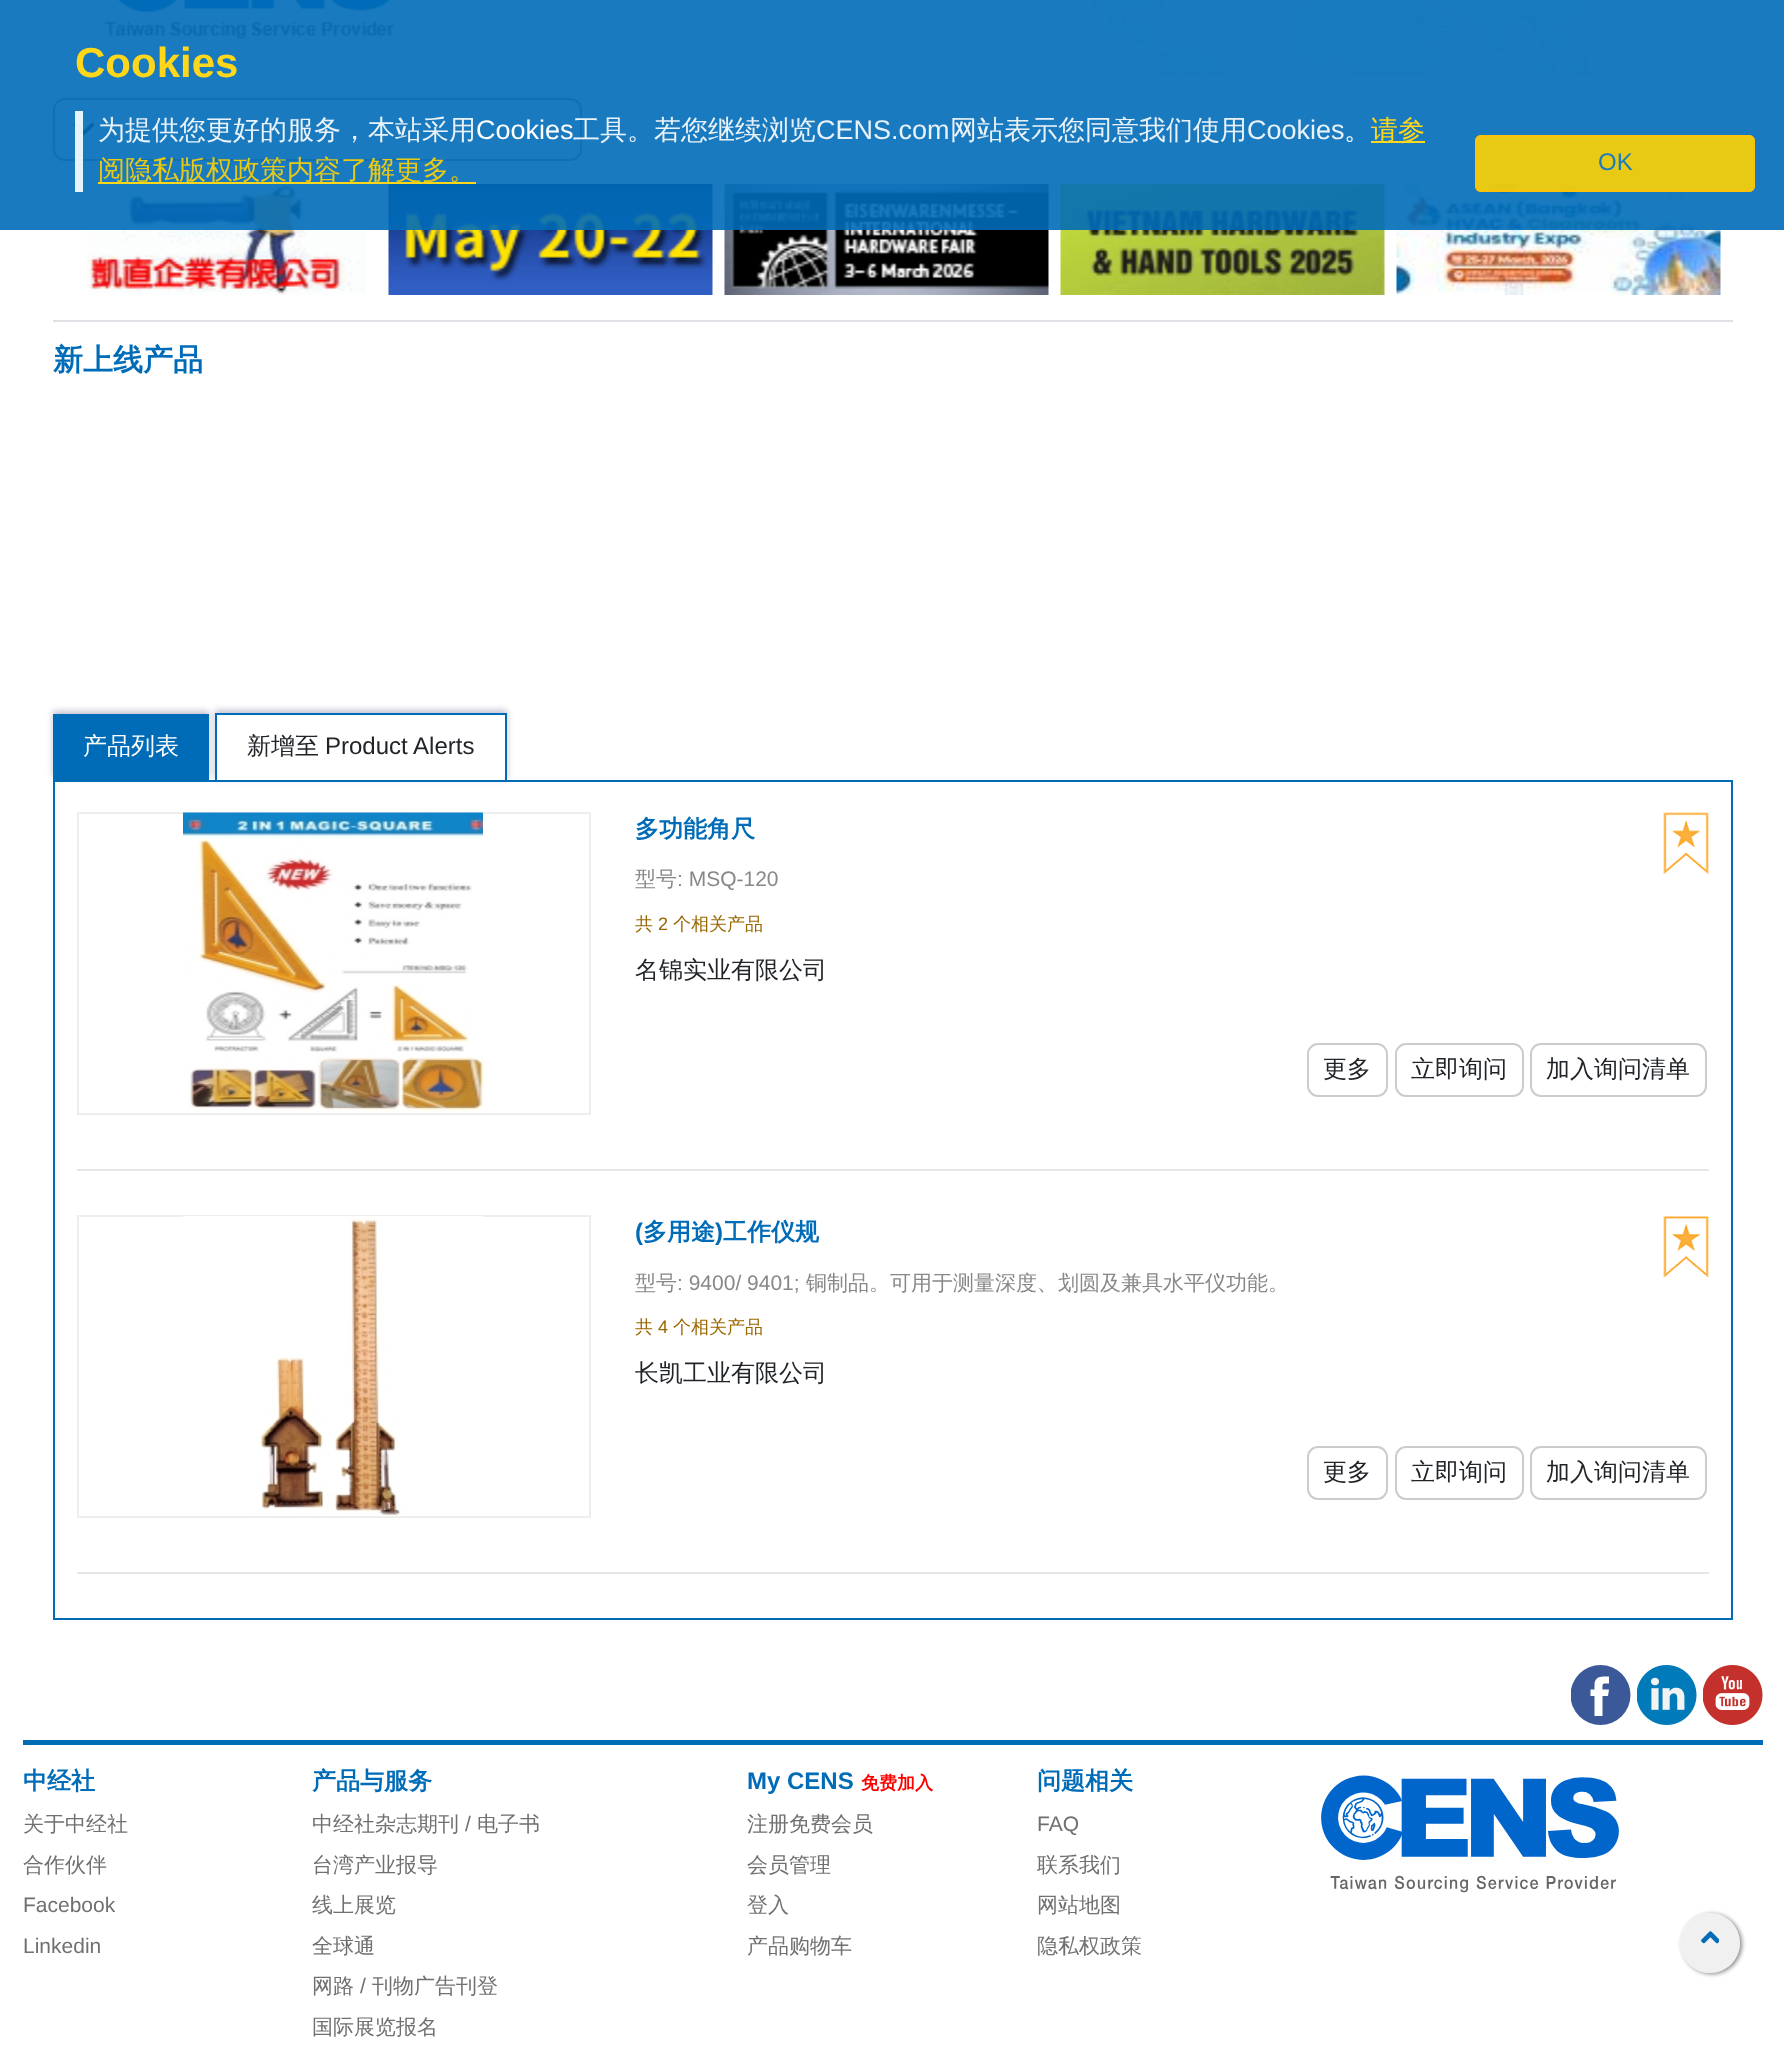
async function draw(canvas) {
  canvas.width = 1784
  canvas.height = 2047
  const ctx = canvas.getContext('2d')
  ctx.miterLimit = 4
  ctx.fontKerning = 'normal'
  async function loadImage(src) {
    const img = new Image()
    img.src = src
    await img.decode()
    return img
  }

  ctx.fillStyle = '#fff'
  ctx.fillRect(0, 0, 1784, 2047)
  ctx.drawImage(await loadImage('image0.png'), 1093, 0, 519, 75)
  ctx.drawImage(await loadImage('image1.png'), 104, 0, 291, 39)
  ctx.beginPath()
  ctx.roundRect(54, 99, 527, 61, 11)
  ctx.strokeStyle = '#999'
  ctx.lineWidth = 2
  ctx.stroke()
  ctx.drawImage(await loadImage('image2.png'), 74, 122, 21, 14)
  ctx.drawImage(await loadImage('image3.png'), 87, 184, 279, 111)
  ctx.drawImage(await loadImage('image4.png'), 388, 184, 325, 111)
  ctx.drawImage(await loadImage('image5.png'), 724, 184, 325, 111)
  ctx.drawImage(await loadImage('image6.png'), 1060, 184, 325, 111)
  ctx.drawImage(await loadImage('image7.png'), 1396, 184, 325, 111)
  ctx.fillStyle = '#006cb8e6'
  ctx.fillRect(0, 0, 1784, 230)
  ctx.font = 'bold 42px Liberation Sans'
  ctx.fillStyle = '#ffd71a'
  ctx.fillText('Cookies', 75, 77)
  ctx.fillStyle = '#ffffffe6'
  ctx.fillRect(75, 111, 8, 81)
  ctx.font = '500 27px WenQuanYi Zen Hei'
  ctx.fillStyle = '#e8f2f8'
  ctx.fillText('为提供您更好的服务，本站采用', 98, 139)
  ctx.font = '27px Liberation Sans'
  ctx.fillStyle = '#fff'
  ctx.fillText('Cookies', 476, 139)
  ctx.font = '500 27px WenQuanYi Zen Hei'
  ctx.fillStyle = '#e8f2f8'
  ctx.fillText('工具。若您继续浏览', 573, 139)
  ctx.font = '27px Liberation Sans'
  ctx.fillText('CENS.com', 816, 139)
  ctx.font = '500 27px WenQuanYi Zen Hei'
  ctx.fillText('网站表示您同意我们使用', 950, 139)
  ctx.font = '27px Liberation Sans'
  ctx.fillText('Cookies', 1247, 139)
  ctx.font = '500 27px WenQuanYi Zen Hei'
  ctx.fillStyle = '#fff'
  ctx.fillText('。', 1344, 139)
  ctx.fillStyle = '#ffd71a'
  ctx.fillRect(1371, 141, 54, 2)
  ctx.fillText('请参', 1371, 139)
  ctx.fillRect(98, 182, 378, 2)
  ctx.fillStyle = '#e8c913'
  ctx.fillText('阅隐私版权政策内容了解更多。', 98, 179)
  ctx.fillStyle = '#ffd200e6'
  ctx.beginPath()
  ctx.roundRect(1475, 135, 280, 57, 6)
  ctx.fill()
  ctx.beginPath()
  ctx.roundRect(1476, 136, 278, 55, 5)
  ctx.strokeStyle = '#ffc107e6'
  ctx.stroke()
  ctx.font = '24px Liberation Sans'
  ctx.fillStyle = '#1a7bbf'
  ctx.fillText('OK', 1598, 170)
  ctx.fillStyle = '#dee2e6'
  ctx.fillRect(53, 320, 1680, 2)
  ctx.font = 'bold 30px WenQuanYi Zen Hei'
  ctx.fillStyle = '#006cb8'
  ctx.fillText('新上线产品', 53, 370)
  ctx.strokeStyle = '#006cb8'
  ctx.strokeRect(54, 781, 1678, 838)
  ctx.fillStyle = '#3333664d'
  ctx.filter = 'blur(3px)'
  ctx.beginPath()
  ctx.rect(53, 711, 156, 66)
  ctx.fill()
  ctx.filter = 'none'
  ctx.fillStyle = '#006cb8'
  ctx.fillRect(53, 714, 156, 66)
  ctx.font = '500 24px WenQuanYi Zen Hei'
  ctx.fillStyle = '#fff'
  ctx.fillText('产品列表', 83, 754)
  ctx.save()
  ctx.beginPath()
  ctx.moveTo(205, 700)
  ctx.lineTo(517, 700)
  ctx.lineTo(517, 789)
  ctx.lineTo(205, 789)
  ctx.closePath()
  ctx.moveTo(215, 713)
  ctx.lineTo(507, 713)
  ctx.lineTo(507, 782)
  ctx.lineTo(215, 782)
  ctx.closePath()
  ctx.clip('evenodd')
  ctx.fillStyle = '#3333664d'
  ctx.filter = 'blur(3px)'
  ctx.beginPath()
  ctx.rect(215, 710, 292, 69)
  ctx.fill()
  ctx.filter = 'none'
  ctx.restore()
  ctx.strokeRect(216, 714, 290, 67)
  ctx.fillStyle = '#212529'
  ctx.fillText('新增至', 247, 754)
  ctx.font = '24px Liberation Sans'
  ctx.fillText('Product Alerts', 325, 754)
  ctx.strokeStyle = '#eee'
  ctx.strokeRect(78, 813, 512, 301)
  ctx.drawImage(await loadImage('image8.png'), 183, 812, 300, 300)
  ctx.drawImage(await loadImage('image9.png'), 1663, 812, 46, 62)
  ctx.font = 'bold 24px WenQuanYi Zen Hei'
  ctx.fillStyle = '#006cb8'
  ctx.fillText('多功能角尺', 635, 837)
  ctx.font = '500 21px WenQuanYi Zen Hei'
  ctx.fillStyle = '#888'
  ctx.fillText('型号', 635, 886)
  ctx.font = '21px Liberation Sans'
  ctx.fillText(': MSQ-120', 677, 886)
  ctx.font = '500 18px WenQuanYi Zen Hei'
  ctx.fillStyle = '#960'
  ctx.fillText('共', 635, 930)
  ctx.font = '18px Liberation Sans'
  ctx.fillText('2', 658, 930)
  ctx.font = '500 18px WenQuanYi Zen Hei'
  ctx.fillText('个相关产品', 673, 930)
  ctx.font = '500 24px WenQuanYi Zen Hei'
  ctx.fillStyle = '#212529'
  ctx.fillText('名锦实业有限公司', 635, 978)
  ctx.beginPath()
  ctx.roundRect(1308, 1044, 79, 52, 10)
  ctx.strokeStyle = '#ccc'
  ctx.stroke()
  ctx.fillText('更多', 1323, 1077)
  ctx.beginPath()
  ctx.roundRect(1396, 1044, 127, 52, 10)
  ctx.stroke()
  ctx.fillText('立即询问', 1411, 1077)
  ctx.beginPath()
  ctx.roundRect(1531, 1044, 175, 52, 10)
  ctx.stroke()
  ctx.fillText('加入询问清单', 1546, 1077)
  ctx.fillStyle = '#e6e6e6'
  ctx.fillRect(77, 1169, 1632, 2)
  ctx.strokeStyle = '#eee'
  ctx.strokeRect(78, 1216, 512, 301)
  ctx.drawImage(await loadImage('image10.png'), 183, 1216, 300, 300)
  ctx.drawImage(await loadImage('image11.png'), 1663, 1216, 46, 62)
  ctx.font = 'bold 24px Liberation Sans'
  ctx.fillStyle = '#006cb8'
  ctx.fillText('(', 635, 1240)
  ctx.font = 'bold 24px WenQuanYi Zen Hei'
  ctx.fillText('多用途', 643, 1240)
  ctx.font = 'bold 24px Liberation Sans'
  ctx.fillText(')', 715, 1240)
  ctx.font = 'bold 24px WenQuanYi Zen Hei'
  ctx.fillText('工作仪规', 723, 1240)
  ctx.font = '500 21px WenQuanYi Zen Hei'
  ctx.fillStyle = '#888'
  ctx.fillText('型号', 635, 1290)
  ctx.font = '21px Liberation Sans'
  ctx.fillText(': 9400/ 9401;', 677, 1290)
  ctx.font = '500 21px WenQuanYi Zen Hei'
  ctx.fillText('铜制品。可用于测量深度、划圆及兼具水平仪功能。', 806, 1290)
  ctx.font = '500 18px WenQuanYi Zen Hei'
  ctx.fillStyle = '#960'
  ctx.fillText('共', 635, 1333)
  ctx.font = '18px Liberation Sans'
  ctx.fillText('4', 658, 1333)
  ctx.font = '500 18px WenQuanYi Zen Hei'
  ctx.fillText('个相关产品', 673, 1333)
  ctx.font = '500 24px WenQuanYi Zen Hei'
  ctx.fillStyle = '#212529'
  ctx.fillText('长凯工业有限公司', 635, 1381)
  ctx.beginPath()
  ctx.roundRect(1308, 1447, 79, 52, 10)
  ctx.strokeStyle = '#ccc'
  ctx.stroke()
  ctx.fillText('更多', 1323, 1480)
  ctx.beginPath()
  ctx.roundRect(1396, 1447, 127, 52, 10)
  ctx.stroke()
  ctx.fillText('立即询问', 1411, 1480)
  ctx.beginPath()
  ctx.roundRect(1531, 1447, 175, 52, 10)
  ctx.stroke()
  ctx.fillText('加入询问清单', 1546, 1480)
  ctx.fillStyle = '#e6e6e6'
  ctx.fillRect(77, 1572, 1632, 2)
  ctx.save()
  ctx.beginPath()
  ctx.rect(1571, 1665, 60, 60)
  ctx.clip()
  ctx.fillStyle = '#3b5998'
  ctx.beginPath()
  ctx.arc(1600.5, 1695, 30, 0, 2 * Math.PI)
  ctx.fill()
  ctx.restore()
  ctx.drawImage(await loadImage('image12.png'), 1637, 1665, 60, 60)
  ctx.drawImage(await loadImage('image13.png'), 1703, 1665, 60, 60)
  ctx.fillStyle = '#fff'
  ctx.beginPath()
  ctx.moveTo(1608, 1696)
  ctx.lineTo(1602.5, 1696)
  ctx.lineTo(1602.5, 1716)
  ctx.lineTo(1594.5, 1716)
  ctx.lineTo(1594.5, 1696)
  ctx.lineTo(1590.5, 1696)
  ctx.lineTo(1590.5, 1689.5)
  ctx.lineTo(1594.5, 1689.5)
  ctx.lineTo(1594.5, 1683.5)
  ctx.bezierCurveTo(1595.5, 1675.5, 1603, 1676.5, 1609, 1676.5)
  ctx.lineTo(1609, 1683.5)
  ctx.bezierCurveTo(1602, 1683.5, 1602.5, 1682.5, 1602.5, 1689.5)
  ctx.lineTo(1609, 1689.5)
  ctx.closePath()
  ctx.fill()
  ctx.fillStyle = '#006cb8'
  ctx.fillRect(23, 1740, 1740, 5)
  ctx.font = 'bold 24px WenQuanYi Zen Hei'
  ctx.fillText('中经社', 23, 1789)
  ctx.font = '500 21px WenQuanYi Zen Hei'
  ctx.fillStyle = '#707070'
  ctx.fillText('关于中经社', 23, 1831)
  ctx.fillText('合作伙伴', 23, 1872)
  ctx.font = '21px Liberation Sans'
  ctx.fillText('Facebook', 23, 1912)
  ctx.fillText('Linkedin', 23, 1953)
  ctx.font = 'bold 24px WenQuanYi Zen Hei'
  ctx.fillStyle = '#006cb8'
  ctx.fillText('产品与服务', 312, 1789)
  ctx.font = '500 21px WenQuanYi Zen Hei'
  ctx.fillStyle = '#707070'
  ctx.fillText('中经社杂志期刊', 312, 1831)
  ctx.font = '21px Liberation Sans'
  ctx.fillText('/', 465, 1831)
  ctx.font = '500 21px WenQuanYi Zen Hei'
  ctx.fillText('电子书', 477, 1831)
  ctx.fillText('台湾产业报导', 312, 1872)
  ctx.fillText('线上展览', 312, 1912)
  ctx.fillText('全球通', 312, 1953)
  ctx.fillText('网路', 312, 1993)
  ctx.font = '21px Liberation Sans'
  ctx.fillText('/', 360, 1993)
  ctx.font = '500 21px WenQuanYi Zen Hei'
  ctx.fillText('刊物广告刊登', 372, 1993)
  ctx.fillText('国际展览报名', 312, 2034)
  ctx.font = 'bold 24px Liberation Sans'
  ctx.fillStyle = '#006cb8'
  ctx.fillText('My CENS', 747, 1789)
  ctx.font = 'bold 18px WenQuanYi Zen Hei'
  ctx.fillStyle = '#f00'
  ctx.fillText('免费加入', 861, 1789)
  ctx.font = '500 21px WenQuanYi Zen Hei'
  ctx.fillStyle = '#707070'
  ctx.fillText('注册免费会员', 747, 1831)
  ctx.fillText('会员管理', 747, 1872)
  ctx.fillText('登入', 747, 1912)
  ctx.fillText('产品购物车', 747, 1953)
  ctx.font = 'bold 24px WenQuanYi Zen Hei'
  ctx.fillStyle = '#006cb8'
  ctx.fillText('问题相关', 1037, 1789)
  ctx.font = '21px Liberation Sans'
  ctx.fillStyle = '#707070'
  ctx.fillText('FAQ', 1037, 1831)
  ctx.font = '500 21px WenQuanYi Zen Hei'
  ctx.fillText('联系我们', 1037, 1872)
  ctx.fillText('网站地图', 1037, 1912)
  ctx.fillText('隐私权政策', 1037, 1953)
  ctx.drawImage(await loadImage('image14.png'), 1321, 1775, 298, 118)
  ctx.save()
  ctx.beginPath()
  ctx.moveTo(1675, 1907)
  ctx.lineTo(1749, 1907)
  ctx.lineTo(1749, 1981)
  ctx.lineTo(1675, 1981)
  ctx.closePath()
  ctx.moveTo(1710, 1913)
  ctx.bezierCurveTo(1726.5, 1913, 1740, 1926.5, 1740, 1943)
  ctx.bezierCurveTo(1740, 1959.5, 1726.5, 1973, 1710, 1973)
  ctx.bezierCurveTo(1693.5, 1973, 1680, 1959.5, 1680, 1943)
  ctx.bezierCurveTo(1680, 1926.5, 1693.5, 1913, 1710, 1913)
  ctx.closePath()
  ctx.clip('evenodd')
  ctx.fillStyle = '#888'
  ctx.filter = 'blur(2px)'
  ctx.beginPath()
  ctx.roundRect(1682, 1914, 60, 60, 30)
  ctx.fill()
  ctx.filter = 'none'
  ctx.restore()
  ctx.fillStyle = '#e2e2e280'
  ctx.beginPath()
  ctx.arc(1710, 1943, 30, 0, 2 * Math.PI)
  ctx.fill()
  ctx.drawImage(await loadImage('image15.png'), 1701, 1931, 18, 13)
}

draw(document.querySelector('canvas'))
